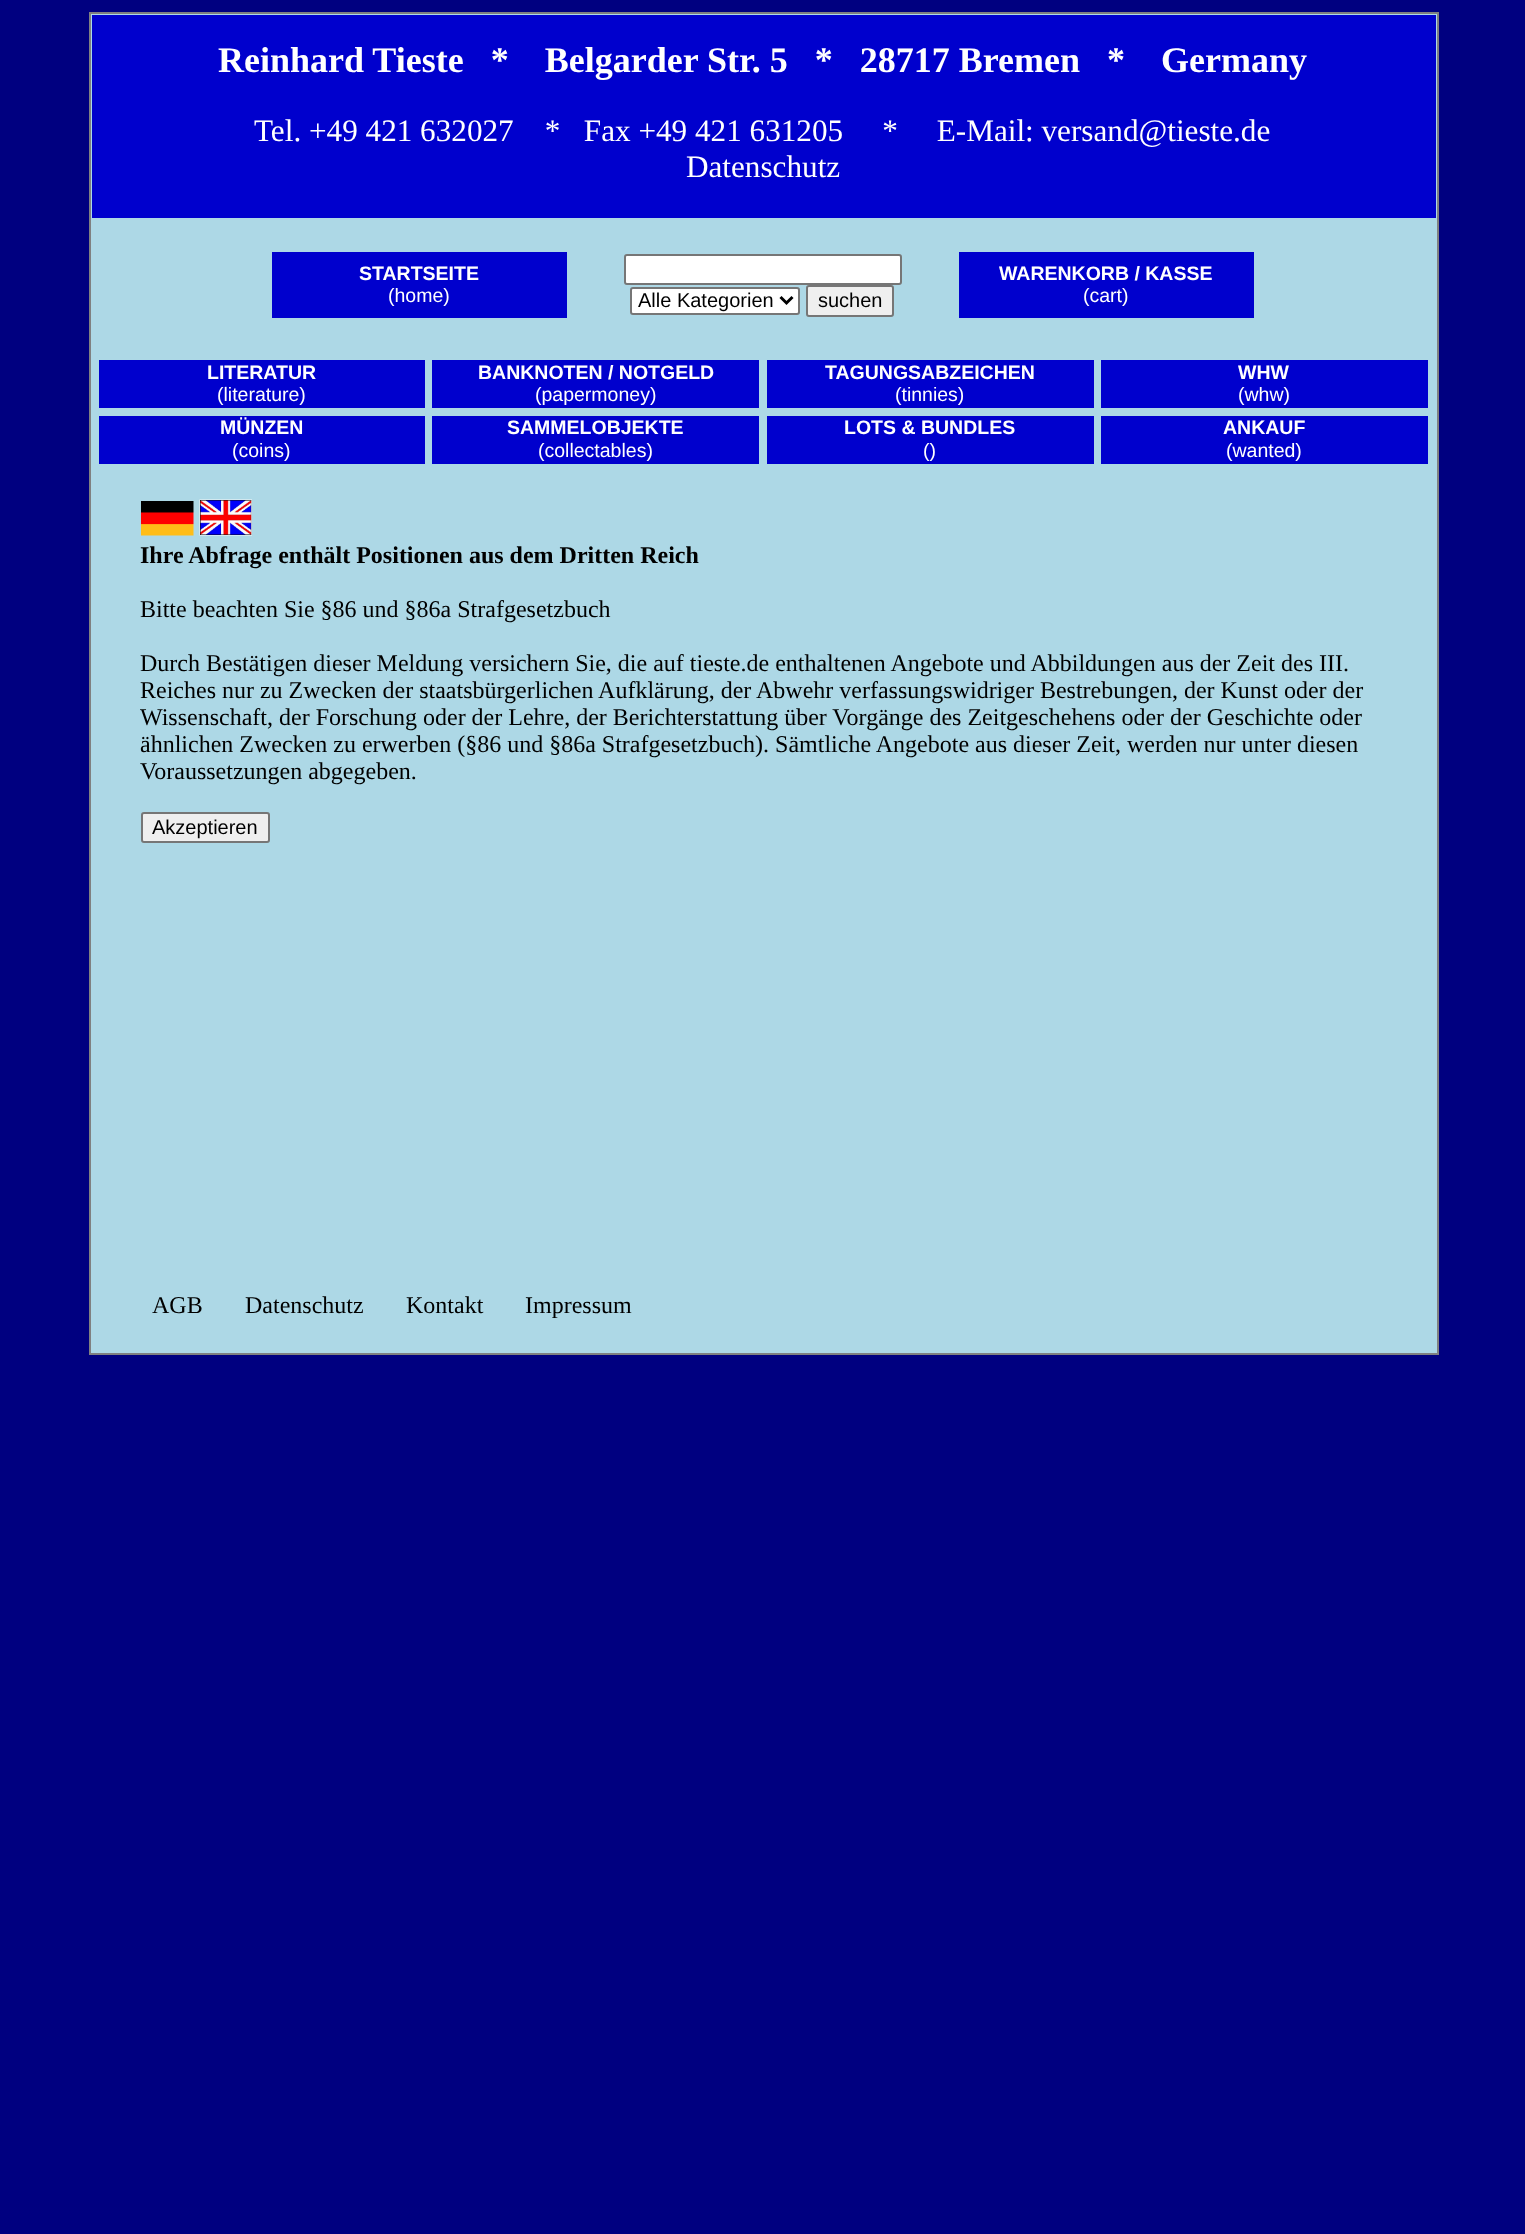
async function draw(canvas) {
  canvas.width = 1525
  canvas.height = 2234
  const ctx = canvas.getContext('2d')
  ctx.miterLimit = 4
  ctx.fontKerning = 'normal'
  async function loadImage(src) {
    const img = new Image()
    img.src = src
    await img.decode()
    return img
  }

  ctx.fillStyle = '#000080'
  ctx.fillRect(0, 0, 1525, 2234)
  ctx.fillStyle = '#add8e6'
  ctx.fillRect(91, 14, 1346, 1339)
  ctx.fillStyle = '#808080'
  ctx.fillRect(89, 12, 1350, 2)
  ctx.fillRect(1437, 12, 2, 1343)
  ctx.fillRect(89, 1353, 1350, 2)
  ctx.fillRect(89, 12, 2, 1343)
  ctx.fillStyle = '#0000cd'
  ctx.fillRect(92, 15, 1344, 203)
  ctx.font = 'bold 36px Liberation Serif'
  ctx.fillStyle = '#fff'
  ctx.fillText('Reinhard Tieste   *    Belgarder Str. 5   *   28717 Bremen   *    Germany', 218, 72)
  ctx.font = '31.2px Liberation Serif'
  ctx.fillText('Tel. +49 421 632027    *   Fax +49 421 631205     *     E-Mail: versand@tieste.de', 254, 141)
  ctx.fillText('Datenschutz', 686, 177)
  ctx.fillStyle = '#0000cd'
  ctx.fillRect(272, 252, 982, 66)
  ctx.font = 'bold 19.5px Liberation Sans'
  ctx.fillStyle = '#fff'
  ctx.fillText('STARTSEITE', 359, 280)
  ctx.font = '19.5px Liberation Sans'
  ctx.fillText('(home)', 388, 302)
  ctx.fillStyle = '#add8e6'
  ctx.fillRect(575, 252, 376, 66)
  ctx.fillRect(567, 245, 8, 81)
  ctx.fillStyle = '#fff'
  ctx.beginPath()
  ctx.roundRect(625, 255, 276, 29, 2)
  ctx.fill()
  ctx.strokeStyle = '#767676'
  ctx.lineWidth = 2
  ctx.stroke()
  ctx.beginPath()
  ctx.roundRect(631, 288, 168, 26, 2)
  ctx.fill()
  ctx.stroke()
  ctx.beginPath()
  ctx.moveTo(780.5, 297)
  ctx.lineTo(786.5, 303)
  ctx.lineTo(792.5, 297)
  ctx.strokeStyle = '#000'
  ctx.lineWidth = 3
  ctx.stroke()
  ctx.font = '20px Liberation Sans'
  ctx.fillStyle = '#000'
  ctx.fillText('Alle Kategorien', 638, 307)
  ctx.fillStyle = '#efefef'
  ctx.beginPath()
  ctx.roundRect(807, 286, 86, 30, 2)
  ctx.fill()
  ctx.strokeStyle = '#767676'
  ctx.lineWidth = 2
  ctx.stroke()
  ctx.fillStyle = '#000'
  ctx.fillText('suchen', 818, 307)
  ctx.fillStyle = '#add8e6'
  ctx.fillRect(951, 245, 8, 81)
  ctx.font = 'bold 19.5px Liberation Sans'
  ctx.fillStyle = '#fff'
  ctx.fillText('WARENKORB / KASSE', 999, 280)
  ctx.font = '19.5px Liberation Sans'
  ctx.fillText('(cart)', 1083, 302)
  ctx.fillStyle = '#0000cd'
  ctx.fillRect(99, 360, 1329, 104)
  ctx.font = 'bold 19.5px Liberation Sans'
  ctx.fillStyle = '#fff'
  ctx.fillText('LITERATUR', 207, 379)
  ctx.font = '19.5px Liberation Sans'
  ctx.fillText('(literature)', 217, 401)
  ctx.fillStyle = '#add8e6'
  ctx.fillRect(1094, 408, 342, 8)
  ctx.fillRect(1094, 408, 7, 63)
  ctx.fillRect(759, 408, 342, 8)
  ctx.fillRect(759, 408, 8, 63)
  ctx.fillRect(425, 408, 342, 8)
  ctx.fillRect(425, 408, 7, 63)
  ctx.fillRect(92, 408, 340, 8)
  ctx.fillRect(425, 353, 7, 63)
  ctx.font = 'bold 19.5px Liberation Sans'
  ctx.fillStyle = '#fff'
  ctx.fillText('BANKNOTEN / NOTGELD', 478, 379)
  ctx.font = '19.5px Liberation Sans'
  ctx.fillText('(papermoney)', 535, 401)
  ctx.fillStyle = '#add8e6'
  ctx.fillRect(759, 353, 8, 63)
  ctx.font = 'bold 19.5px Liberation Sans'
  ctx.fillStyle = '#fff'
  ctx.fillText('TAGUNGSABZEICHEN', 825, 379)
  ctx.font = '19.5px Liberation Sans'
  ctx.fillText('(tinnies)', 895, 401)
  ctx.fillStyle = '#add8e6'
  ctx.fillRect(1094, 353, 7, 63)
  ctx.font = 'bold 19.5px Liberation Sans'
  ctx.fillStyle = '#fff'
  ctx.fillText('WHW', 1238, 379)
  ctx.font = '19.5px Liberation Sans'
  ctx.fillText('(whw)', 1238, 401)
  ctx.font = 'bold 19.5px Liberation Sans'
  ctx.fillText('MÜNZEN', 220, 434)
  ctx.font = '19.5px Liberation Sans'
  ctx.fillText('(coins)', 232, 457)
  ctx.font = 'bold 19.5px Liberation Sans'
  ctx.fillText('SAMMELOBJEKTE', 507, 434)
  ctx.font = '19.5px Liberation Sans'
  ctx.fillText('(collectables)', 538, 457)
  ctx.font = 'bold 19.5px Liberation Sans'
  ctx.fillText('LOTS & BUNDLES', 844, 434)
  ctx.font = '19.5px Liberation Sans'
  ctx.fillText('()', 923, 457)
  ctx.font = 'bold 19.5px Liberation Sans'
  ctx.fillText('ANKAUF', 1223, 434)
  ctx.font = '19.5px Liberation Sans'
  ctx.fillText('(wanted)', 1226, 457)
  ctx.drawImage(await loadImage('image0.png'), 141, 501, 53, 35)
  ctx.drawImage(await loadImage('image1.png'), 199, 499, 53, 37)
  ctx.font = 'bold 24px Liberation Serif'
  ctx.fillStyle = '#000'
  ctx.fillText('Ihre Abfrage enthält Positionen aus dem Dritten Reich', 140, 563)
  ctx.font = '24px Liberation Serif'
  ctx.fillText('Bitte beachten Sie §86 und §86a Strafgesetzbuch', 140, 617)
  ctx.fillText('Durch Bestätigen dieser Meldung versichern Sie, die auf tieste.de enthaltenen Angebote und Abbildungen aus der Zeit des III.', 140, 671)
  ctx.fillText('Reiches nur zu Zwecken der staatsbürgerlichen Aufklärung, der Abwehr verfassungswidriger Bestrebungen, der Kunst oder der', 140, 698)
  ctx.fillText('Wissenschaft, der Forschung oder der Lehre, der Berichterstattung über Vorgänge des Zeitgeschehens oder der Geschichte oder', 140, 725)
  ctx.fillText('ähnlichen Zwecken zu erwerben (§86 und §86a Strafgesetzbuch). Sämtliche Angebote aus dieser Zeit, werden nur unter diesen', 140, 752)
  ctx.fillText('Voraussetzungen abgegeben.', 140, 779)
  ctx.fillStyle = '#efefef'
  ctx.beginPath()
  ctx.roundRect(142, 813, 127, 29, 2)
  ctx.fill()
  ctx.stroke()
  ctx.font = '20px Liberation Sans'
  ctx.fillStyle = '#000'
  ctx.fillText('Akzeptieren', 152, 834)
  ctx.font = '24px Liberation Serif'
  ctx.fillText('AGB', 152, 1313)
  ctx.fillText('Datenschutz', 245, 1313)
  ctx.fillText('Kontakt', 406, 1313)
  ctx.fillText('Impressum', 525, 1313)
}

draw(document.querySelector('canvas'))
